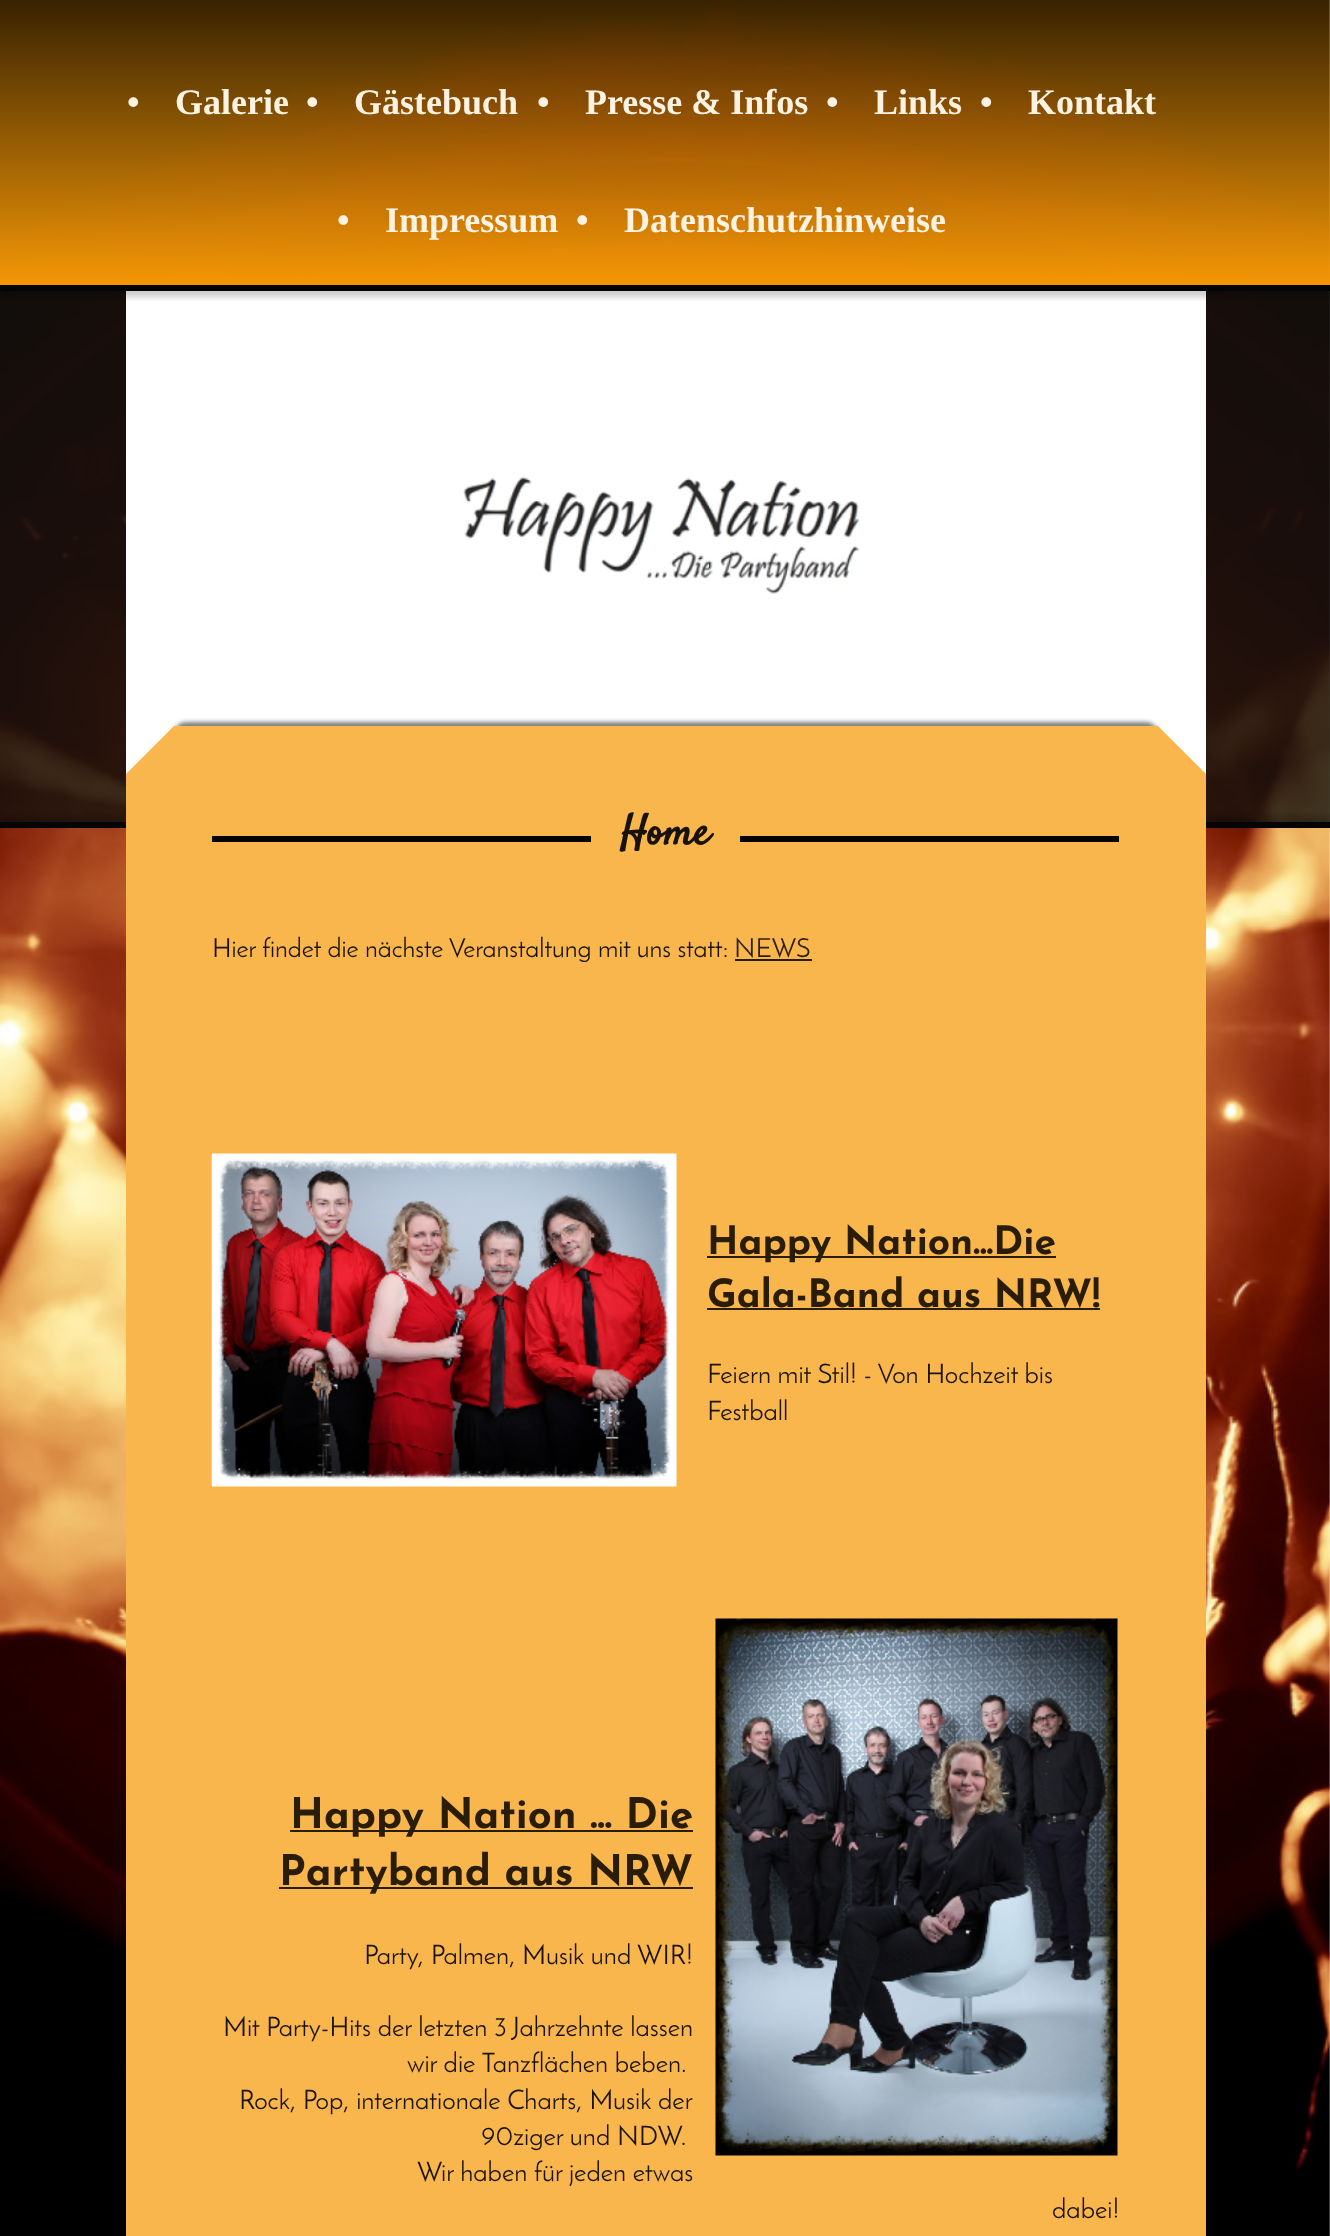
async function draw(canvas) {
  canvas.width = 1330
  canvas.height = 2236
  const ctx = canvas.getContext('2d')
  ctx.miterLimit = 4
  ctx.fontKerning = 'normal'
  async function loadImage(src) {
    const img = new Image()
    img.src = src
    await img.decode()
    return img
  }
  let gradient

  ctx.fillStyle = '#fff'
  ctx.fillRect(0, 0, 1330, 2236)
  ctx.drawImage(await loadImage('image0.png'), 0, 0, 1330, 2236)
  ctx.fillStyle = '#13110ecc'
  ctx.fillRect(0, 291, 1330, 531)
  ctx.drawImage(await loadImage('image1.png'), 126, 291, 1080, 483)
  ctx.save()
  ctx.beginPath()
  ctx.rect(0, 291, 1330, 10)
  ctx.clip()
  ctx.fillStyle = '#00000033'
  ctx.filter = 'blur(3px)'
  ctx.beginPath()
  ctx.rect(0, -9, 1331, 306)
  ctx.fill()
  ctx.filter = 'none'
  ctx.restore()
  gradient = ctx.createLinearGradient(665, -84, 665, 285)
  gradient.addColorStop(0, '#f4970600')
  gradient.addColorStop(1, '#f49706')
  ctx.fillStyle = gradient
  ctx.fillRect(0, 0, 1330, 285)
  ctx.fillStyle = '#050505'
  ctx.fillRect(0, 285, 1330, 6)
  ctx.font = 'bold 36px Liberation Serif'
  ctx.fillStyle = '#fef3e2'
  ctx.fillText('•', 127, 114)
  ctx.fillText('Galerie', 175, 114)
  ctx.fillText('•', 306, 114)
  ctx.fillText('Gästebuch', 354, 114)
  ctx.fillText('•', 537, 114)
  ctx.fillText('Presse & Infos', 585, 114)
  ctx.fillText('•', 826, 114)
  ctx.fillText('Links', 874, 114)
  ctx.fillText('•', 980, 114)
  ctx.fillText('Kontakt', 1028, 114)
  ctx.fillText('•', 337, 232)
  ctx.fillText('Impressum', 385, 232)
  ctx.fillText('•', 576, 232)
  ctx.fillText('Datenschutzhinweise', 624, 232)
  ctx.save()
  ctx.beginPath()
  ctx.rect(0, 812, 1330, 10)
  ctx.clip()
  ctx.fillStyle = '#00000033'
  ctx.filter = 'blur(3px)'
  ctx.beginPath()
  ctx.rect(0, 816, 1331, 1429)
  ctx.fill()
  ctx.filter = 'none'
  ctx.restore()
  ctx.fillStyle = '#050505'
  ctx.fillRect(0, 822, 1330, 6)
  ctx.fillStyle = '#f9b64d'
  ctx.fillRect(126, 774, 1080, 1462)
  ctx.fillStyle = '#00000080'
  ctx.filter = 'blur(2px)'
  ctx.beginPath()
  ctx.roundRect(174, 722, 984, 24, 12)
  ctx.fill()
  ctx.filter = 'none'
  ctx.fillStyle = '#f9b64d'
  ctx.beginPath()
  ctx.moveTo(1206, 774)
  ctx.lineTo(126, 774)
  ctx.lineTo(174, 726)
  ctx.lineTo(1158, 726)
  ctx.closePath()
  ctx.fill()
  ctx.fillStyle = '#050505'
  ctx.fillRect(212, 836, 907, 6)
  ctx.fillStyle = '#f9b64d'
  ctx.fillRect(591, 836, 149, 6)
  ctx.font = 'bold 42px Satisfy'
  ctx.fillStyle = '#191208'
  ctx.fillText('Home', 620, 844)
  ctx.font = '26.4px Josefin Sans'
  ctx.fillText('Hier findet die nächste Veranstaltung mit uns statt:', 212, 957)
  ctx.fillStyle = '#2a1d08'
  ctx.fillText('NEWS', 734, 957)
  ctx.fillRect(735, 959, 77, 2)
  ctx.drawImage(await loadImage('image2.png'), 211, 1153, 466, 334)
  ctx.fillRect(707, 1256, 349, 2)
  ctx.font = 'bold 39px Josefin Sans'
  ctx.fillText('Happy Nation...Die', 707, 1254)
  ctx.fillRect(707, 1308, 393, 2)
  ctx.fillText('Gala-Band aus NRW!', 707, 1307)
  ctx.font = '27px Josefin Sans'
  ctx.fillStyle = '#191208'
  ctx.fillText('Feiern mit Stil! - Von Hochzeit bis', 707, 1383)
  ctx.fillText('Festball', 707, 1420)
  ctx.drawImage(await loadImage('image3.png'), 715, 1618, 403, 538)
  ctx.fillStyle = '#2a1d08'
  ctx.fillRect(290, 1830, 403, 2)
  ctx.font = 'bold 42px Josefin Sans'
  ctx.fillText('Happy Nation ... Die', 290, 1828)
  ctx.fillRect(279, 1887, 414, 2)
  ctx.fillText('Partyband aus NRW', 279, 1885)
  ctx.font = '27px Josefin Sans'
  ctx.fillStyle = '#191208'
  ctx.fillText('Party, Palmen, Musik und WIR!', 364, 1964)
  ctx.fillText('Mit Party-Hits der letzten 3 Jahrzehnte lassen', 223, 2036)
  ctx.fillText('wir die Tanzflächen beben.', 407, 2072)
  ctx.fillText('Rock, Pop, internationale Charts, Musik der', 239, 2109)
  ctx.fillText('90ziger und NDW.', 481, 2145)
  ctx.fillText('Wir haben für jeden etwas', 417, 2181)
  ctx.fillText('dabei!', 1052, 2218)
}

draw(document.querySelector('canvas'))
